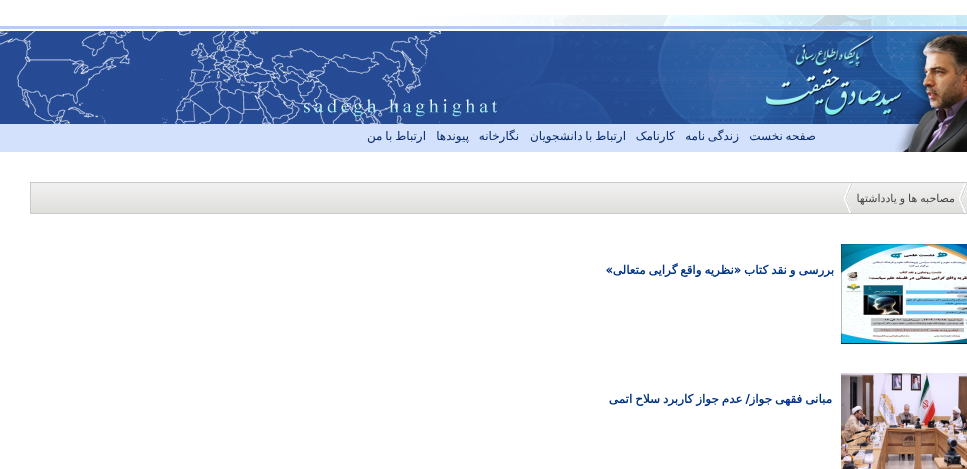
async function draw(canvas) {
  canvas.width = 967
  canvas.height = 469
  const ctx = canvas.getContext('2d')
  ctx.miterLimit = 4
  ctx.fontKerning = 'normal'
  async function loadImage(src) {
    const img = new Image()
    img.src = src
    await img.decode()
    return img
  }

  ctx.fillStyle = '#fff'
  ctx.fillRect(0, 0, 967, 469)
  ctx.drawImage(await loadImage('image0.png'), 0, 15, 967, 15)
  ctx.drawImage(await loadImage('image1.png'), 653, 31, 314, 93)
  ctx.drawImage(await loadImage('image2.png'), 364, 31, 289, 93)
  ctx.drawImage(await loadImage('image3.png'), 0, 31, 364, 93)
  ctx.drawImage(await loadImage('image4.png'), 895, 124, 72, 28)
  ctx.fillStyle = '#d3e1fc'
  ctx.fillRect(0, 124, 895, 28)
  ctx.wordSpacing = '-1px'
  ctx.direction = 'rtl'
  ctx.font = '12px DejaVu Sans'
  ctx.fillStyle = '#0a2b6c'
  ctx.fillText('صفحه نخست', 816, 140)
  ctx.fillText('زندگی نامه', 739, 140)
  ctx.wordSpacing = '0px'
  ctx.fillText('کارنامک', 675, 140)
  ctx.wordSpacing = '-1px'
  ctx.fillText('ارتباط با دانشجویان', 626, 140)
  ctx.wordSpacing = '0px'
  ctx.fillText('نگارخانه', 519, 140)
  ctx.fillText('پیوندها', 469, 140)
  ctx.wordSpacing = '-1px'
  ctx.fillText('ارتباط با من', 426, 140)
  ctx.drawImage(await loadImage('image5.png'), 31, 183, 936, 30)
  ctx.strokeStyle = '#cacaca'
  ctx.strokeRect(30.5, 182.5, 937, 31)
  ctx.drawImage(await loadImage('image6.png'), 959, 183, 8, 30)
  ctx.drawImage(await loadImage('image6.png'), 844, 183, 8, 30)
  ctx.wordSpacing = '-0.5px'
  ctx.font = '11px DejaVu Sans'
  ctx.fillStyle = '#454545'
  ctx.fillText('مصاحبه ها و یادداشتها', 955, 202)
  ctx.drawImage(await loadImage('image7.png'), 841, 244, 126, 100)
  ctx.wordSpacing = '-0.75px'
  ctx.font = 'bold 11.9px DejaVu Sans'
  ctx.fillStyle = '#003384'
  ctx.fillText('بررسی و نقد کتاب «نظریه واقع گرایی متعالی»', 834, 274)
  ctx.drawImage(await loadImage('image8.png'), 841, 373, 126, 96)
  ctx.fillText('مبانی فقهی جواز/ عدم جواز کاربرد سلاح اتمی', 832, 403)
}

draw(document.querySelector('canvas'))
